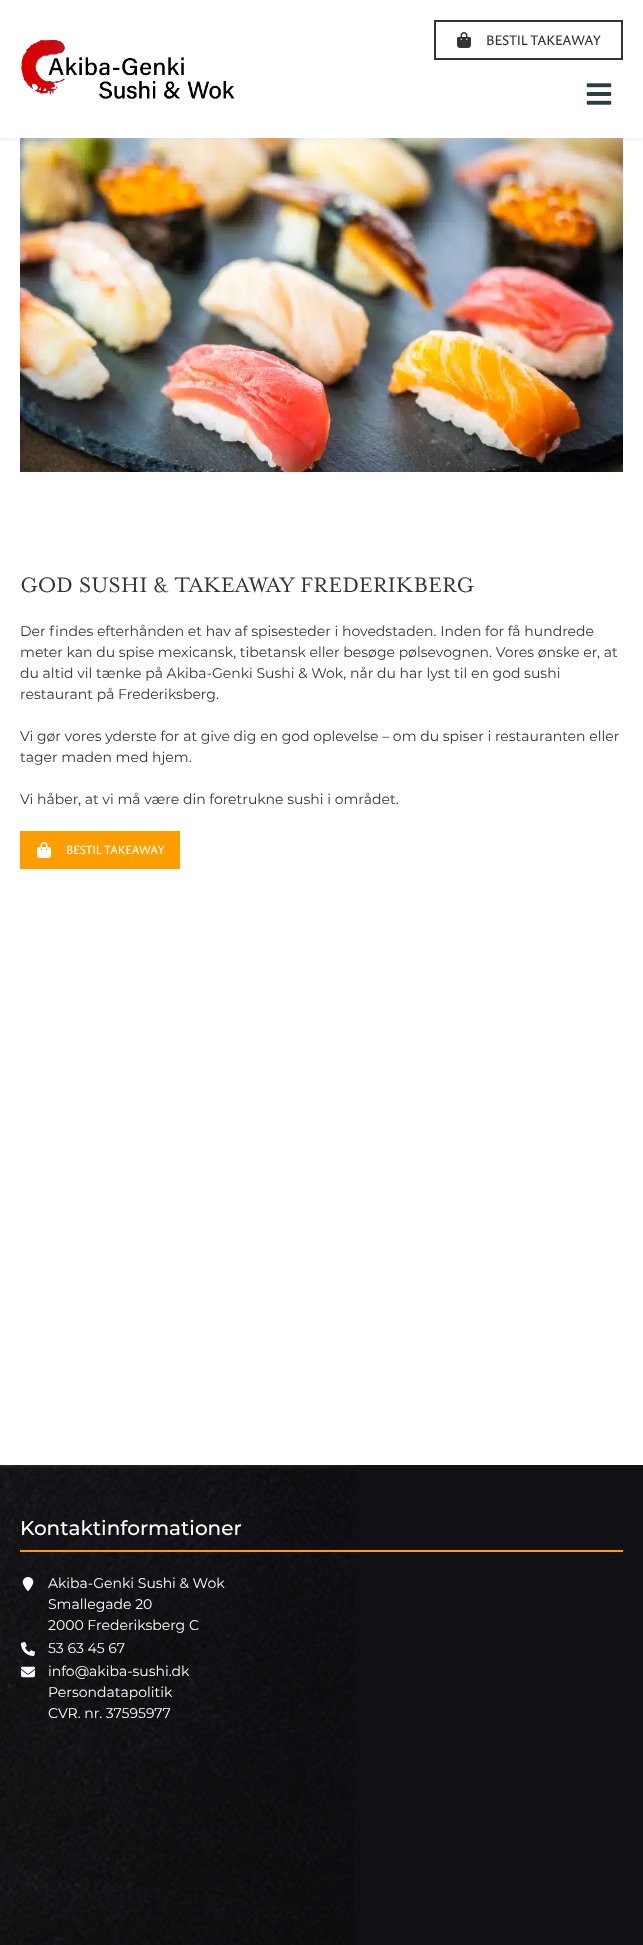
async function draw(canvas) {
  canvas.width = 643
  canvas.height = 1945
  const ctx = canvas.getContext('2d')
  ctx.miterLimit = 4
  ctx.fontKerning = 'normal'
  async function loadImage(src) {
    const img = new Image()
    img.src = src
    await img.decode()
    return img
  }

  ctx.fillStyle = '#fff'
  ctx.fillRect(0, 0, 643, 1945)
  ctx.drawImage(await loadImage('image3.png'), 20, 138, 603, 334)
  ctx.fillStyle = '#cecece'
  ctx.filter = 'blur(5px)'
  ctx.beginPath()
  ctx.rect(-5, -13, 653, 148)
  ctx.fill()
  ctx.filter = 'none'
  ctx.fillStyle = '#fff'
  ctx.fillRect(0, 0, 643, 138)
  ctx.drawImage(await loadImage('image0.png'), 20, 39, 215, 60)
  ctx.strokeStyle = '#333'
  ctx.lineWidth = 2
  ctx.strokeRect(435, 21, 187, 38)
  ctx.drawImage(await loadImage('image1.png'), 457, 32, 14, 16)
  ctx.font = '14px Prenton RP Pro'
  ctx.fillStyle = '#333'
  ctx.fillText('BESTIL TAKEAWAY', 486, 45)
  ctx.drawImage(await loadImage('image2.png'), 586, 83, 26, 22)
  ctx.font = '24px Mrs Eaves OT'
  ctx.fillText('GOD SUSHI & TAKEAWAY FREDERIKBERG', 20, 592)
  ctx.font = '14px Montserrat'
  ctx.fillText('Der findes efterhånden et hav af spisesteder i hovedstaden. Inden for få hundrede', 20, 636)
  ctx.fillText('meter kan du spise mexicansk, tibetansk eller besøge pølsevognen. Vores ønske er, at', 20, 657)
  ctx.fillText('du altid vil tænke på Akiba-Genki Sushi & Wok, når du har lyst til en god sushi', 20, 678)
  ctx.fillText('restaurant på Frederiksberg.', 20, 699)
  ctx.fillText('Vi gør vores yderste for at give dig en god oplevelse – om du spiser i restauranten eller', 20, 741)
  ctx.fillText('tager maden med hjem.', 20, 762)
  ctx.fillText('Vi håber, at vi må være din foretrukne sushi i området.', 20, 804)
  ctx.fillStyle = '#ff9e00'
  ctx.fillRect(20, 831, 160, 38)
  ctx.drawImage(await loadImage('image4.png'), 37, 842, 14, 16)
  ctx.font = '12px Prenton RP Pro'
  ctx.fillStyle = '#fff'
  ctx.fillText('BESTIL TAKEAWAY', 66, 854)
  ctx.fillStyle = '#111015'
  ctx.fillRect(354, 1465, 289, 480)
  ctx.drawImage(await loadImage('image5.png'), 0, 1465, 354, 480)
  ctx.fillStyle = '#ff9e00'
  ctx.fillRect(20, 1550, 603, 2)
  ctx.font = '500 20px Montserrat'
  ctx.fillStyle = '#fff'
  ctx.fillText('Kontaktinformationer', 20, 1535)
  ctx.drawImage(await loadImage('image6.png'), 22, 1577, 12, 14)
  ctx.font = '14px Montserrat'
  ctx.fillText('Akiba-Genki Sushi & Wok', 48, 1588)
  ctx.fillText('Smallegade 20', 48, 1609)
  ctx.fillText('2000 Frederiksberg C', 48, 1630)
  ctx.drawImage(await loadImage('image7.png'), 21, 1642, 14, 14)
  ctx.fillText('53 63 45 67', 48, 1653)
  ctx.drawImage(await loadImage('image8.png'), 21, 1666, 14, 12)
  ctx.fillText('info@akiba-sushi.dk', 48, 1676)
  ctx.fillText('Persondatapolitik', 48, 1697)
  ctx.fillText('CVR. nr. 37595977', 48, 1718)
}

draw(document.querySelector('canvas'))
